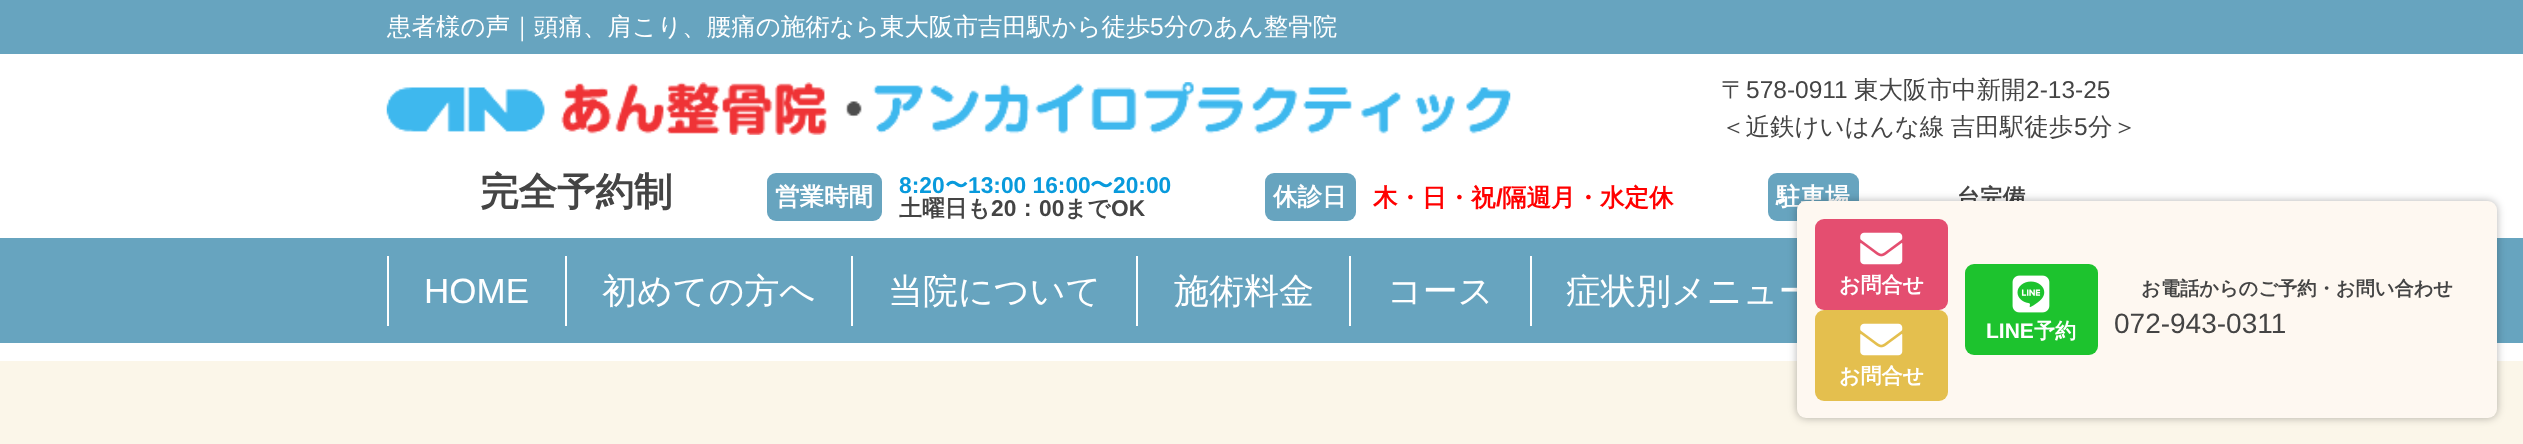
async function draw(canvas) {
  canvas.width = 2523
  canvas.height = 444
  const ctx = canvas.getContext('2d')
  ctx.miterLimit = 4
  ctx.fontKerning = 'normal'
  async function loadImage(src) {
    const img = new Image()
    img.src = src
    await img.decode()
    return img
  }

  ctx.fillStyle = '#fbf6e9'
  ctx.fillRect(0, 0, 2523, 444)
  ctx.fillStyle = '#67a4bf'
  ctx.fillRect(0, 0, 2523, 54)
  ctx.font = '500 24.5px WenQuanYi Zen Hei'
  ctx.fillStyle = '#fff'
  ctx.fillText('患者様の声｜頭痛、肩こり、腰痛の施術なら東大阪市吉田駅から徒歩', 387, 35)
  ctx.font = '24.5px Liberation Sans'
  ctx.fillText('5', 1150, 35)
  ctx.font = '500 24.5px WenQuanYi Zen Hei'
  ctx.fillText('分のあん整骨院', 1164, 35)
  ctx.fillRect(0, 54, 2523, 307)
  ctx.drawImage(await loadImage('image0.png'), 386, 82, 1125, 53)
  ctx.fillStyle = '#444'
  ctx.fillText('〒', 1721, 98)
  ctx.font = '24.5px Liberation Sans'
  ctx.fillText('578-0911', 1746, 98)
  ctx.font = '500 24.5px WenQuanYi Zen Hei'
  ctx.fillText('東大阪市中新開', 1854, 98)
  ctx.font = '24.5px Liberation Sans'
  ctx.fillText('2-13-25', 2026, 98)
  ctx.wordSpacing = '-1px'
  ctx.font = '500 24.5px WenQuanYi Zen Hei'
  ctx.fillText('＜近鉄けいはんな線 吉田駅徒歩', 1721, 135)
  ctx.wordSpacing = '0px'
  ctx.font = '24.5px Liberation Sans'
  ctx.fillText('5', 2074, 135)
  ctx.font = '500 24.5px WenQuanYi Zen Hei'
  ctx.fillText('分＞', 2088, 135)
  ctx.font = 'bold 38.5px WenQuanYi Zen Hei'
  ctx.fillText('完全予約制', 480, 205)
  ctx.fillStyle = '#67a4bf'
  ctx.beginPath()
  ctx.roundRect(767, 173, 115, 48, 9)
  ctx.fill()
  ctx.font = 'bold 24.5px WenQuanYi Zen Hei'
  ctx.fillStyle = '#fff'
  ctx.fillText('営業時間', 775, 205)
  ctx.font = 'bold 22.75px Liberation Sans'
  ctx.fillStyle = '#089adc'
  ctx.fillText('8:20', 899, 193)
  ctx.font = 'bold 22.75px WenQuanYi Zen Hei'
  ctx.fillText('〜', 945, 193)
  ctx.font = 'bold 22.75px Liberation Sans'
  ctx.fillText('13:00 16:00', 968, 193)
  ctx.font = 'bold 22.75px WenQuanYi Zen Hei'
  ctx.fillText('〜', 1090, 193)
  ctx.font = 'bold 22.75px Liberation Sans'
  ctx.fillText('20:00', 1113, 193)
  ctx.font = 'bold 22.75px WenQuanYi Zen Hei'
  ctx.fillStyle = '#444'
  ctx.fillText('土曜日も', 899, 216)
  ctx.font = 'bold 22.75px Liberation Sans'
  ctx.fillText('20', 991, 216)
  ctx.font = 'bold 22.75px WenQuanYi Zen Hei'
  ctx.fillText('：', 1016, 216)
  ctx.font = 'bold 22.75px Liberation Sans'
  ctx.fillText('00', 1039, 216)
  ctx.font = 'bold 22.75px WenQuanYi Zen Hei'
  ctx.fillText('まで', 1064, 216)
  ctx.font = 'bold 22.75px Liberation Sans'
  ctx.fillText('OK', 1111, 216)
  ctx.fillStyle = '#67a4bf'
  ctx.beginPath()
  ctx.roundRect(1265, 173, 91, 48, 9)
  ctx.fill()
  ctx.font = 'bold 24.5px WenQuanYi Zen Hei'
  ctx.fillStyle = '#fff'
  ctx.fillText('休診日', 1273, 205)
  ctx.fillStyle = '#f00'
  ctx.fillText('木・日・祝', 1373, 206)
  ctx.font = 'bold 24.5px Liberation Sans'
  ctx.fillText('/', 1496, 206)
  ctx.font = 'bold 24.5px WenQuanYi Zen Hei'
  ctx.fillText('隔週月・水定休', 1502, 206)
  ctx.fillStyle = '#67a4bf'
  ctx.beginPath()
  ctx.roundRect(1768, 173, 91, 48, 9)
  ctx.fill()
  ctx.fillStyle = '#fff'
  ctx.fillText('駐車場', 1776, 205)
  ctx.font = 'bold 22.75px WenQuanYi Zen Hei'
  ctx.fillStyle = '#444'
  ctx.fillText('台完備', 1957, 205)
  ctx.fillStyle = '#67a4bf'
  ctx.fillRect(0, 238, 2523, 105)
  ctx.fillStyle = '#fff'
  ctx.fillRect(565, 256, 2, 70)
  ctx.fillRect(387, 256, 2, 70)
  ctx.font = '35px Liberation Sans'
  ctx.fillText('HOME', 424, 303)
  ctx.fillRect(851, 256, 2, 70)
  ctx.font = '500 35px WenQuanYi Zen Hei'
  ctx.fillText('初めての方へ', 602, 303)
  ctx.fillRect(1136, 256, 2, 70)
  ctx.fillText('当院について', 888, 303)
  ctx.fillRect(1349, 256, 2, 70)
  ctx.fillText('施術料金', 1174, 303)
  ctx.fillRect(1530, 256, 2, 70)
  ctx.fillText('コース', 1387, 303)
  ctx.fillText('症状別メニュー', 1566, 303)
  ctx.fillStyle = '#0000004d'
  ctx.filter = 'blur(4.5px)'
  ctx.beginPath()
  ctx.roundRect(1797, 201, 700, 217, 9)
  ctx.fill()
  ctx.filter = 'none'
  ctx.fillStyle = '#fef8f1'
  ctx.beginPath()
  ctx.roundRect(1797, 201, 700, 217, 9)
  ctx.fill()
  ctx.fillStyle = '#e44e70'
  ctx.beginPath()
  ctx.roundRect(1815, 219, 133, 91, 9)
  ctx.fill()
  ctx.drawImage(await loadImage('image1.png'), 1860, 232, 43, 33)
  ctx.font = 'bold 21px WenQuanYi Zen Hei'
  ctx.fillStyle = '#fff'
  ctx.fillText('お問合せ', 1839, 292)
  ctx.fillStyle = '#e4bf4e'
  ctx.beginPath()
  ctx.roundRect(1815, 310, 133, 91, 9)
  ctx.fill()
  ctx.drawImage(await loadImage('image2.png'), 1860, 323, 43, 33)
  ctx.fillStyle = '#fff'
  ctx.fillText('お問合せ', 1839, 383)
  ctx.fillStyle = '#1dc32e'
  ctx.beginPath()
  ctx.roundRect(1965, 264, 133, 91, 9)
  ctx.fill()
  ctx.drawImage(await loadImage('image3.png'), 2012, 275, 38, 38)
  ctx.font = 'bold 21px Liberation Sans'
  ctx.fillStyle = '#fff'
  ctx.fillText('LINE', 1986, 338)
  ctx.font = 'bold 21px WenQuanYi Zen Hei'
  ctx.fillText('予約', 2034, 338)
  ctx.font = 'bold 19.25px WenQuanYi Zen Hei'
  ctx.fillStyle = '#444'
  ctx.fillText('お電話からのご予約・お問い合わせ', 2141, 295)
  ctx.font = '28px Liberation Sans'
  ctx.fillText('072-943-0311', 2114, 333)
}

draw(document.querySelector('canvas'))
